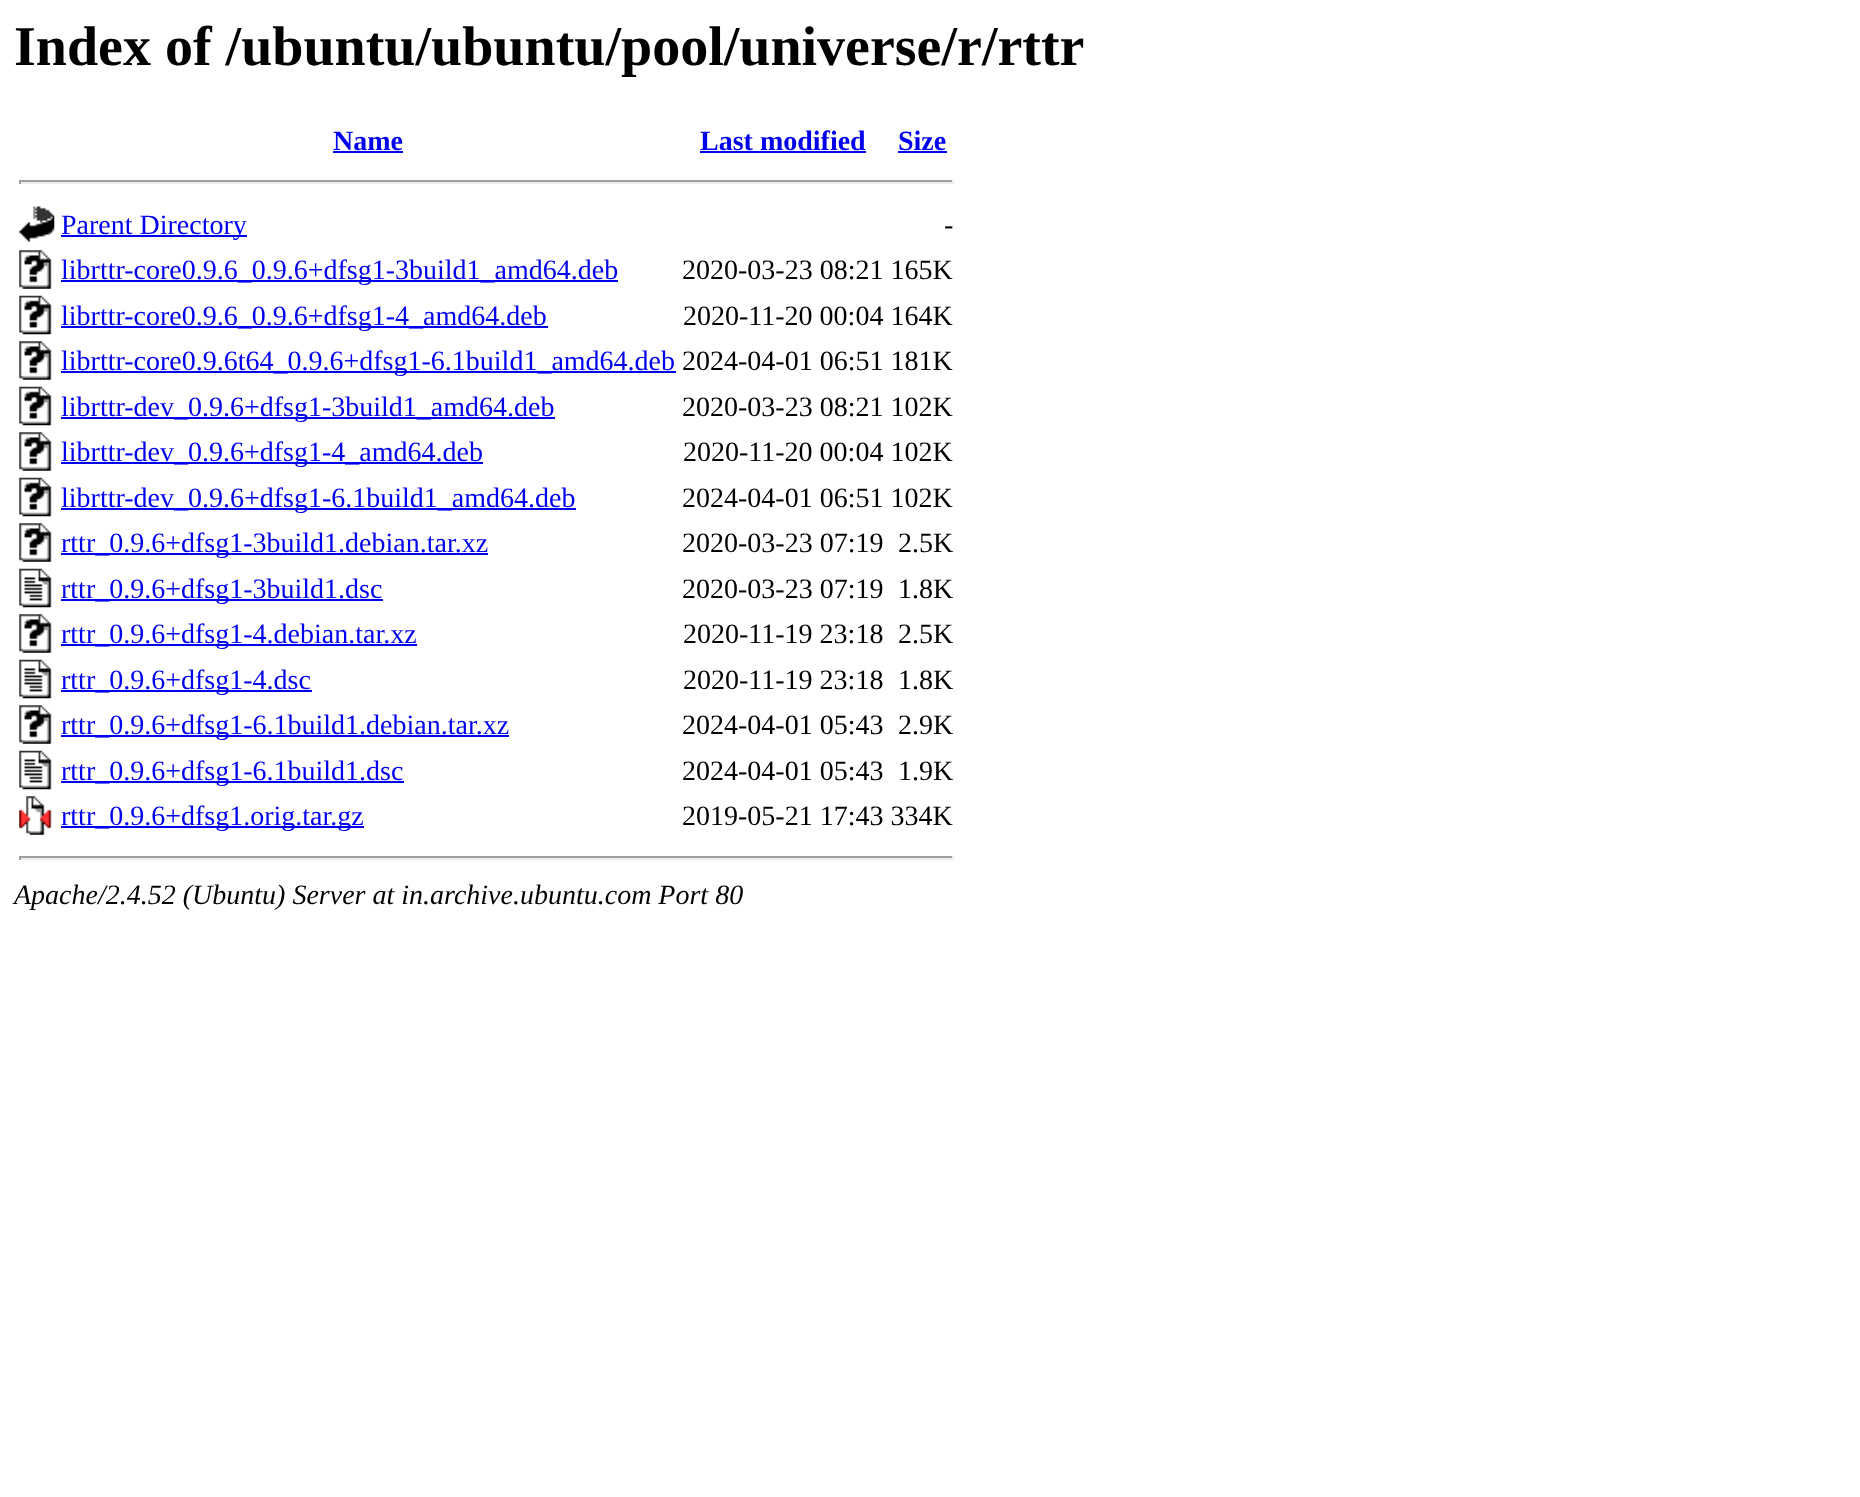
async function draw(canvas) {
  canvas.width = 1860
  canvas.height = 1497
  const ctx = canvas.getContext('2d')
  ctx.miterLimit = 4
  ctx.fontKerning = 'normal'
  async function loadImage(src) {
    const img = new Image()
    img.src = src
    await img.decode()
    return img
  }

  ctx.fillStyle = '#fff'
  ctx.fillRect(0, 0, 1860, 1497)
  ctx.font = 'bold 56px Liberation Serif'
  ctx.fillStyle = '#000'
  ctx.fillText('Index of /ubuntu/ubuntu/pool/universe/r/rttr', 14, 65)
  ctx.font = 'bold 28px Liberation Serif'
  ctx.fillStyle = '#00e'
  ctx.fillText('Name', 333, 150)
  ctx.fillRect(333, 151, 70, 2)
  ctx.fillText('Last modified', 700, 150)
  ctx.fillRect(700, 151, 166, 2)
  ctx.fillText('Size', 898, 150)
  ctx.fillRect(898, 151, 49, 2)
  ctx.fillStyle = '#9f9f9f'
  ctx.fillRect(19, 180, 935, 2)
  ctx.fillStyle = '#eee'
  ctx.fillRect(952, 180, 2, 4)
  ctx.fillRect(19, 182, 935, 2)
  ctx.fillStyle = '#9f9f9f'
  ctx.fillRect(19, 180, 2, 4)
  ctx.drawImage(await loadImage('image0.png'), 19, 206, 36, 36)
  ctx.fillStyle = '#00e'
  ctx.fillRect(61, 235, 186, 2)
  ctx.font = '28px Liberation Serif'
  ctx.fillText('Parent Directory', 61, 234)
  ctx.fillStyle = '#000'
  ctx.fillText('-', 944, 234)
  ctx.drawImage(await loadImage('image1.png'), 19, 250, 33, 39)
  ctx.fillStyle = '#00e'
  ctx.fillRect(61, 280, 557, 2)
  ctx.fillText('librttr-core0.9.6_0.9.6+dfsg1-3build1_amd64.deb', 61, 279)
  ctx.fillStyle = '#000'
  ctx.fillText('2020-03-23 08:21 165K', 682, 279)
  ctx.drawImage(await loadImage('image2.png'), 19, 295, 33, 40)
  ctx.fillStyle = '#00e'
  ctx.fillRect(61, 326, 487, 2)
  ctx.fillText('librttr-core0.9.6_0.9.6+dfsg1-4_amd64.deb', 61, 325)
  ctx.fillStyle = '#000'
  ctx.fillText('2020-11-20 00:04 164K', 683, 325)
  ctx.drawImage(await loadImage('image1.png'), 19, 341, 33, 39)
  ctx.fillStyle = '#00e'
  ctx.fillRect(61, 371, 615, 2)
  ctx.fillText('librttr-core0.9.6t64_0.9.6+dfsg1-6.1build1_amd64.deb', 61, 370)
  ctx.fillStyle = '#000'
  ctx.fillText('2024-04-01 06:51 181K', 682, 370)
  ctx.drawImage(await loadImage('image2.png'), 19, 386, 33, 40)
  ctx.fillStyle = '#00e'
  ctx.fillRect(61, 417, 494, 2)
  ctx.fillText('librttr-dev_0.9.6+dfsg1-3build1_amd64.deb', 61, 416)
  ctx.fillStyle = '#000'
  ctx.fillText('2020-03-23 08:21 102K', 682, 416)
  ctx.drawImage(await loadImage('image1.png'), 19, 432, 33, 39)
  ctx.fillStyle = '#00e'
  ctx.fillRect(61, 462, 422, 2)
  ctx.fillText('librttr-dev_0.9.6+dfsg1-4_amd64.deb', 61, 461)
  ctx.fillStyle = '#000'
  ctx.fillText('2020-11-20 00:04 102K', 683, 461)
  ctx.drawImage(await loadImage('image2.png'), 19, 477, 33, 40)
  ctx.fillStyle = '#00e'
  ctx.fillRect(61, 508, 515, 2)
  ctx.fillText('librttr-dev_0.9.6+dfsg1-6.1build1_amd64.deb', 61, 507)
  ctx.fillStyle = '#000'
  ctx.fillText('2024-04-01 06:51 102K', 682, 507)
  ctx.drawImage(await loadImage('image1.png'), 19, 523, 33, 39)
  ctx.fillStyle = '#00e'
  ctx.fillRect(61, 553, 427, 2)
  ctx.fillText('rttr_0.9.6+dfsg1-3build1.debian.tar.xz', 61, 552)
  ctx.fillStyle = '#000'
  ctx.fillText('2020-03-23 07:19', 682, 552)
  ctx.fillText('2.5K', 898, 552)
  ctx.drawImage(await loadImage('image3.png'), 19, 568, 33, 40)
  ctx.fillStyle = '#00e'
  ctx.fillRect(61, 599, 322, 2)
  ctx.fillText('rttr_0.9.6+dfsg1-3build1.dsc', 61, 598)
  ctx.fillStyle = '#000'
  ctx.fillText('2020-03-23 07:19', 682, 598)
  ctx.fillText('1.8K', 898, 598)
  ctx.drawImage(await loadImage('image1.png'), 19, 614, 33, 39)
  ctx.fillStyle = '#00e'
  ctx.fillRect(61, 644, 356, 2)
  ctx.fillText('rttr_0.9.6+dfsg1-4.debian.tar.xz', 61, 643)
  ctx.fillStyle = '#000'
  ctx.fillText('2020-11-19 23:18', 683, 643)
  ctx.fillText('2.5K', 898, 643)
  ctx.drawImage(await loadImage('image3.png'), 19, 659, 33, 40)
  ctx.fillStyle = '#00e'
  ctx.fillRect(61, 690, 251, 2)
  ctx.fillText('rttr_0.9.6+dfsg1-4.dsc', 61, 689)
  ctx.fillStyle = '#000'
  ctx.fillText('2020-11-19 23:18', 683, 689)
  ctx.fillText('1.8K', 898, 689)
  ctx.drawImage(await loadImage('image1.png'), 19, 705, 33, 39)
  ctx.fillStyle = '#00e'
  ctx.fillRect(61, 735, 448, 2)
  ctx.fillText('rttr_0.9.6+dfsg1-6.1build1.debian.tar.xz', 61, 734)
  ctx.fillStyle = '#000'
  ctx.fillText('2024-04-01 05:43', 682, 734)
  ctx.fillText('2.9K', 898, 734)
  ctx.drawImage(await loadImage('image3.png'), 19, 750, 33, 40)
  ctx.fillStyle = '#00e'
  ctx.fillRect(61, 781, 343, 2)
  ctx.fillText('rttr_0.9.6+dfsg1-6.1build1.dsc', 61, 780)
  ctx.fillStyle = '#000'
  ctx.fillText('2024-04-01 05:43', 682, 780)
  ctx.fillText('1.9K', 898, 780)
  ctx.drawImage(await loadImage('image4.png'), 19, 796, 33, 39)
  ctx.fillStyle = '#00e'
  ctx.fillRect(61, 826, 303, 2)
  ctx.fillText('rttr_0.9.6+dfsg1.orig.tar.gz', 61, 825)
  ctx.fillStyle = '#000'
  ctx.fillText('2019-05-21 17:43 334K', 682, 825)
  ctx.fillStyle = '#9f9f9f'
  ctx.fillRect(19, 856, 935, 2)
  ctx.fillStyle = '#eee'
  ctx.fillRect(952, 856, 2, 4)
  ctx.fillRect(19, 858, 935, 2)
  ctx.fillStyle = '#9f9f9f'
  ctx.fillRect(19, 856, 2, 4)
  ctx.font = 'italic 28px Liberation Serif'
  ctx.fillStyle = '#000'
  ctx.fillText('Apache/2.4.52 (Ubuntu) Server at in.archive.ubuntu.com Port 80', 14, 904)
}

draw(document.querySelector('canvas'))
